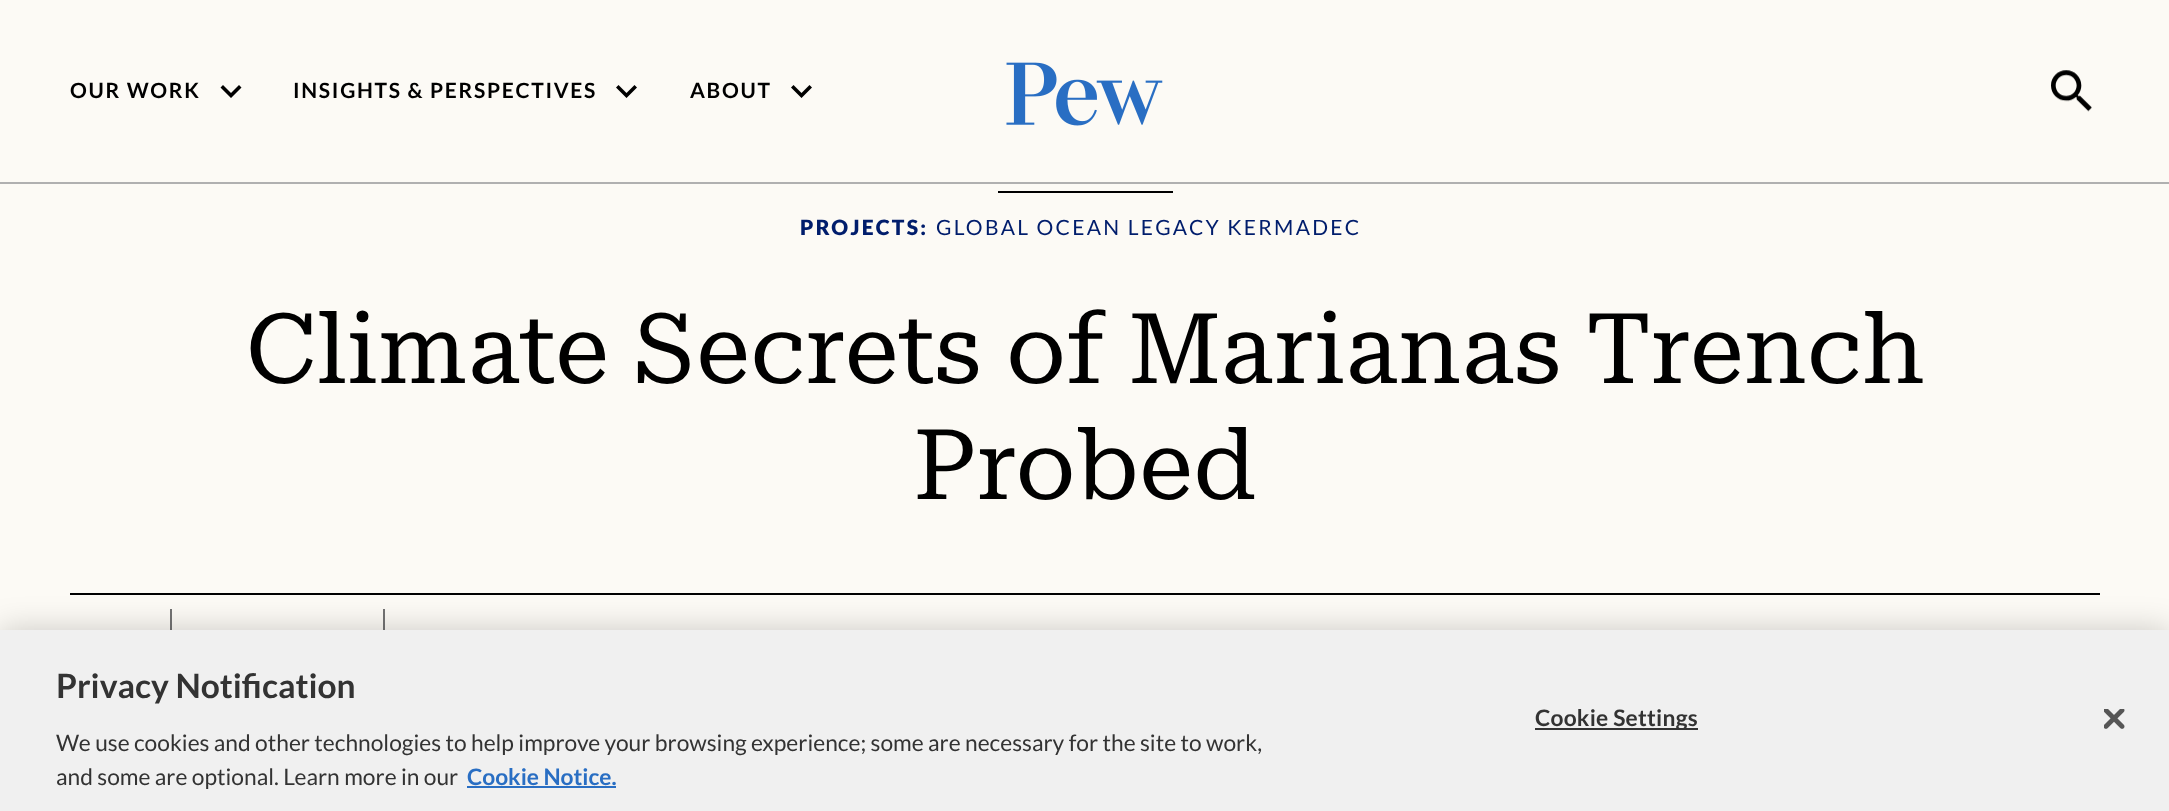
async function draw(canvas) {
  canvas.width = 2169
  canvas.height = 811
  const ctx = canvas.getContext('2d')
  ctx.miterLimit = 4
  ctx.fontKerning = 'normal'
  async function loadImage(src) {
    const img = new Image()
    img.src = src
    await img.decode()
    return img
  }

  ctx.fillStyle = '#fcfaf5'
  ctx.fillRect(0, 0, 2169, 811)
  ctx.fillStyle = '#b0b0b0'
  ctx.fillRect(0, 182, 2169, 2)
  ctx.letterSpacing = '1.7px'
  ctx.font = 'bold 21px Lato'
  ctx.fillStyle = '#000'
  ctx.fillText('OUR WORK', 70, 98)
  ctx.beginPath()
  ctx.moveTo(239, 85)
  ctx.lineTo(231, 93)
  ctx.lineTo(223, 85)
  ctx.lineTo(220.5, 87.5)
  ctx.lineTo(231, 98)
  ctx.lineTo(241.5, 87.5)
  ctx.closePath()
  ctx.fill()
  ctx.fillText('INSIGHTS & PERSPECTIVES', 293, 98)
  ctx.beginPath()
  ctx.moveTo(634.5, 85)
  ctx.lineTo(626.5, 93)
  ctx.lineTo(618.5, 85)
  ctx.lineTo(616, 87.5)
  ctx.lineTo(626.5, 98)
  ctx.lineTo(637, 87.5)
  ctx.closePath()
  ctx.fill()
  ctx.fillText('ABOUT', 690, 98)
  ctx.beginPath()
  ctx.moveTo(809.5, 85)
  ctx.lineTo(801.5, 93)
  ctx.lineTo(793.5, 85)
  ctx.lineTo(791, 87.5)
  ctx.lineTo(801.5, 98)
  ctx.lineTo(812, 87.5)
  ctx.closePath()
  ctx.fill()
  ctx.drawImage(await loadImage('image0.png'), 1006, 62, 157, 64)
  ctx.drawImage(await loadImage('image1.png'), 2051, 70, 41, 42)
  ctx.fillRect(998, 191, 175, 2)
  ctx.letterSpacing = '2.25px'
  ctx.font = '900 21px Lato'
  ctx.fillStyle = '#001d6c'
  ctx.fillText('PROJECTS:', 800, 235)
  ctx.font = '21px Lato'
  ctx.fillText('GLOBAL OCEAN LEGACY KERMADEC', 936, 235)
  ctx.letterSpacing = '0px'
  ctx.font = '98px Roboto Serif'
  ctx.fillStyle = '#000'
  ctx.fillText('Climate Secrets of Marianas Trench', 246, 383)
  ctx.fillText('Probed', 913, 499)
  ctx.fillRect(70, 593, 2030, 2)
  ctx.fillStyle = '#737373'
  ctx.fillRect(170, 609, 2, 21)
  ctx.fillRect(383, 609, 2, 21)
  ctx.fillStyle = '#00000033'
  ctx.filter = 'blur(16px)'
  ctx.beginPath()
  ctx.rect(0, 630, 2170, 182)
  ctx.fill()
  ctx.filter = 'none'
  ctx.fillStyle = '#f0f0f0'
  ctx.fillRect(0, 630, 2169, 181)
  ctx.font = 'bold 33.5px Lato'
  ctx.fillStyle = '#333'
  ctx.fillText('Privacy Notification', 56, 698)
  ctx.font = '22.75px Lato'
  ctx.fillText('We use cookies and other technologies to help improve your browsing experience; some are necessary for the site to work,', 56, 751)
  ctx.fillText('and some are optional. Learn more in our', 56, 785)
  ctx.font = 'bold 22.75px Lato'
  ctx.fillStyle = '#296ec3'
  ctx.fillText('Cookie Notice.', 467, 785)
  ctx.fillRect(467, 786, 149, 2)
  ctx.fillStyle = '#333'
  ctx.fillRect(1535, 728, 163, 2)
  ctx.letterSpacing = '0.25px'
  ctx.fillText('Cookie Settings', 1535, 726)
  ctx.drawImage(await loadImage('image2.png'), 2104, 709, 21, 20)
}

draw(document.querySelector('canvas'))
